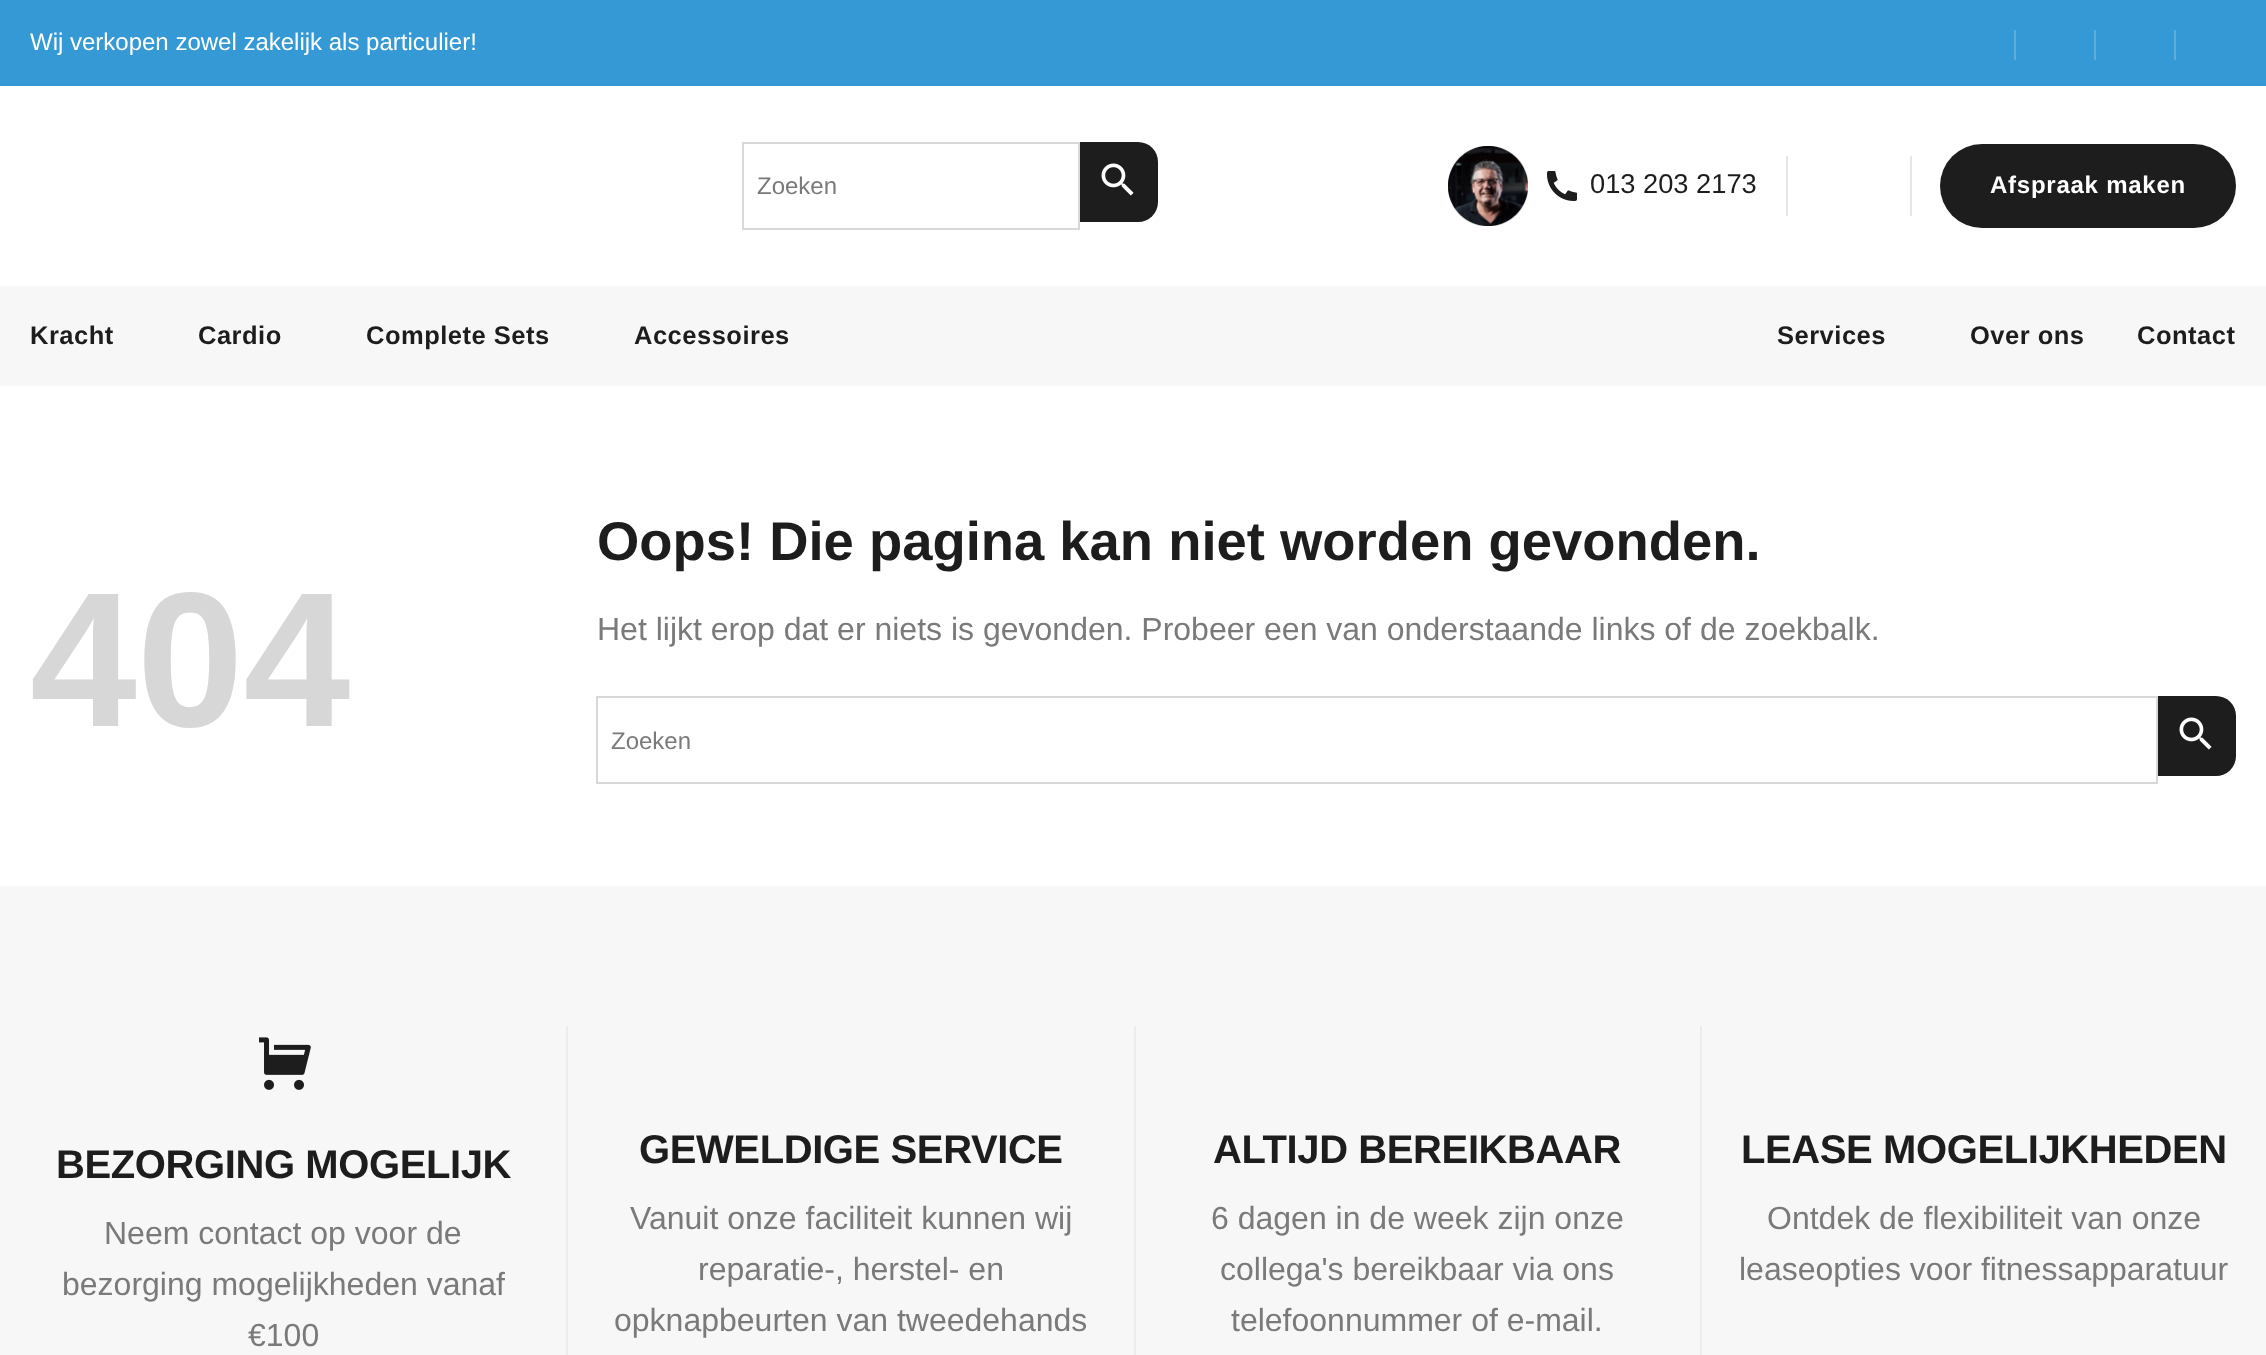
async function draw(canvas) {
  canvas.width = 2266
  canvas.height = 1355
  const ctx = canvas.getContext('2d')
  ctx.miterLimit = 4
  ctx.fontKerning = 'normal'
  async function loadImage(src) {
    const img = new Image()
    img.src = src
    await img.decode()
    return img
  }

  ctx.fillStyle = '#fff'
  ctx.fillRect(0, 0, 2266, 1355)
  ctx.fillStyle = '#3599d5'
  ctx.fillRect(0, 0, 2266, 86)
  ctx.font = '24px Liberation Sans'
  ctx.fillStyle = '#fff'
  ctx.fillText('Wij verkopen zowel zakelijk als particulier!', 30, 50)
  ctx.fillStyle = '#5daddd'
  ctx.fillRect(2014, 30, 2, 30)
  ctx.fillRect(2094, 30, 2, 30)
  ctx.fillRect(2174, 30, 2, 30)
  ctx.fillStyle = '#1d1d1d'
  ctx.beginPath()
  ctx.roundRect(1078, 142, 80, 80, [0, 20, 20, 0])
  ctx.fill()
  ctx.strokeStyle = '#d8d8d8'
  ctx.lineWidth = 2
  ctx.strokeRect(743, 143, 336, 86)
  ctx.fillStyle = '#7a7a7a'
  ctx.fillText('Zoeken', 757, 194)
  ctx.drawImage(await loadImage('image0.png'), 1101, 163, 33, 33)
  ctx.drawImage(await loadImage('image1.png'), 1448, 146, 80, 80)
  ctx.drawImage(await loadImage('image2.png'), 1547, 171, 30, 30)
  ctx.font = '27.25px Liberation Sans'
  ctx.fillStyle = '#1d1d1d'
  ctx.fillText('013 203 2173', 1590, 193)
  ctx.fillStyle = '#e6e6e6'
  ctx.fillRect(1786, 156, 2, 60)
  ctx.fillRect(1910, 156, 2, 60)
  ctx.fillStyle = '#1d1d1d'
  ctx.beginPath()
  ctx.roundRect(1940, 144, 296, 84, 42)
  ctx.fill()
  ctx.letterSpacing = '0.75px'
  ctx.font = 'bold 24px Liberation Sans'
  ctx.fillStyle = '#fff'
  ctx.fillText('Afspraak maken', 1990, 193)
  ctx.fillStyle = '#f7f7f7'
  ctx.fillRect(0, 286, 2266, 100)
  ctx.letterSpacing = '0.5px'
  ctx.font = 'bold 25.5px Liberation Sans'
  ctx.fillStyle = '#1d1d1d'
  ctx.fillText('Kracht', 30, 344)
  ctx.fillText('Cardio', 198, 344)
  ctx.fillText('Complete Sets', 366, 344)
  ctx.fillText('Accessoires', 634, 344)
  ctx.fillText('Services', 1777, 344)
  ctx.fillText('Over ons', 1970, 344)
  ctx.fillText('Contact', 2137, 344)
  ctx.letterSpacing = '0px'
  ctx.font = 'bold 192px Liberation Sans'
  ctx.fillStyle = '#d7d7d7'
  ctx.fillText('404', 30, 726)
  ctx.font = 'bold 54.4px Liberation Sans'
  ctx.fillStyle = '#1d1d1d'
  ctx.fillText('Oops! Die pagina kan niet worden gevonden.', 597, 560)
  ctx.font = '32px Liberation Sans'
  ctx.fillStyle = '#7a7a7a'
  ctx.fillText('Het lijkt erop dat er niets is gevonden. Probeer een van onderstaande links of de zoekbalk.', 597, 640)
  ctx.fillStyle = '#1d1d1d'
  ctx.beginPath()
  ctx.roundRect(2156, 696, 80, 80, [0, 20, 20, 0])
  ctx.fill()
  ctx.strokeRect(597, 697, 1560, 86)
  ctx.font = '24px Liberation Sans'
  ctx.fillStyle = '#7a7a7a'
  ctx.fillText('Zoeken', 611, 749)
  ctx.drawImage(await loadImage('image0.png'), 2179, 717, 33, 33)
  ctx.fillStyle = '#f7f7f7'
  ctx.fillRect(0, 886, 2266, 469)
  ctx.drawImage(await loadImage('image3.png'), 259, 1037, 52, 53)
  ctx.letterSpacing = '-0.4px'
  ctx.font = 'bold 40px Liberation Sans'
  ctx.fillStyle = '#1d1d1d'
  ctx.fillText('BEZORGING MOGELIJK', 56, 1178)
  ctx.letterSpacing = '0px'
  ctx.font = '32px Liberation Sans'
  ctx.fillStyle = '#7a7a7a'
  ctx.fillText('Neem contact op voor de', 104, 1244)
  ctx.fillText('bezorging mogelijkheden vanaf', 62, 1295)
  ctx.fillText('€100', 248, 1346)
  ctx.fillStyle = '#ececec'
  ctx.fillRect(566, 1026, 2, 329)
  ctx.letterSpacing = '-0.4px'
  ctx.font = 'bold 40px Liberation Sans'
  ctx.fillStyle = '#1d1d1d'
  ctx.fillText('GEWELDIGE SERVICE', 639, 1163)
  ctx.letterSpacing = '0px'
  ctx.font = '32px Liberation Sans'
  ctx.fillStyle = '#7a7a7a'
  ctx.fillText('Vanuit onze faciliteit kunnen wij', 630, 1229)
  ctx.fillText('reparatie-, herstel- en', 698, 1280)
  ctx.fillText('opknapbeurten van tweedehands', 614, 1331)
  ctx.fillStyle = '#ececec'
  ctx.fillRect(1134, 1026, 2, 329)
  ctx.letterSpacing = '-0.4px'
  ctx.font = 'bold 40px Liberation Sans'
  ctx.fillStyle = '#1d1d1d'
  ctx.fillText('ALTIJD BEREIKBAAR', 1213, 1163)
  ctx.letterSpacing = '0px'
  ctx.font = '32px Liberation Sans'
  ctx.fillStyle = '#7a7a7a'
  ctx.fillText('6 dagen in de week zijn onze', 1211, 1229)
  ctx.fillText('collega\'s bereikbaar via ons', 1220, 1280)
  ctx.fillText('telefoonnummer of e-mail.', 1231, 1331)
  ctx.fillStyle = '#ececec'
  ctx.fillRect(1700, 1026, 2, 329)
  ctx.letterSpacing = '-0.4px'
  ctx.font = 'bold 40px Liberation Sans'
  ctx.fillStyle = '#1d1d1d'
  ctx.fillText('LEASE MOGELIJKHEDEN', 1741, 1163)
  ctx.letterSpacing = '0px'
  ctx.font = '32px Liberation Sans'
  ctx.fillStyle = '#7a7a7a'
  ctx.fillText('Ontdek de flexibiliteit van onze', 1767, 1229)
  ctx.fillText('leaseopties voor fitnessapparatuur', 1739, 1280)
}

draw(document.querySelector('canvas'))
